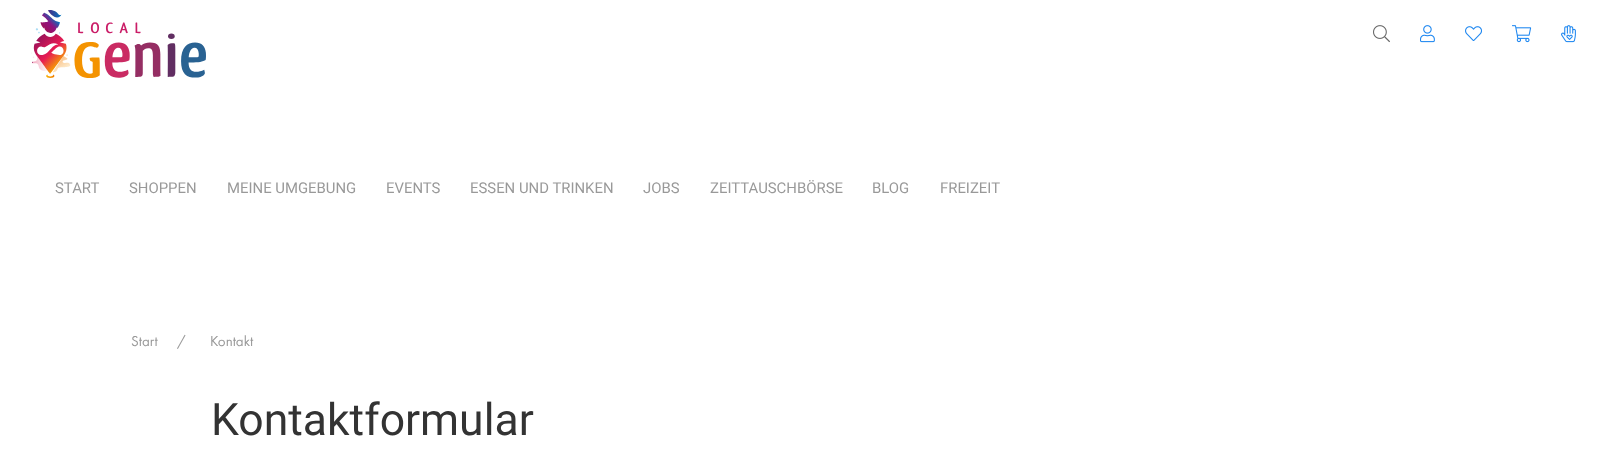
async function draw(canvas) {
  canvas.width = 1621
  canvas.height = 455
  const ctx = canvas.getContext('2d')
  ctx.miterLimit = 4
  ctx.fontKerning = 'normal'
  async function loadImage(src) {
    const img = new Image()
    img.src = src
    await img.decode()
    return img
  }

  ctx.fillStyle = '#fff'
  ctx.fillRect(0, 0, 1621, 455)
  ctx.drawImage(await loadImage('image0.png'), 31, 10, 175, 68)
  ctx.drawImage(await loadImage('image1.png'), 1373, 25, 17, 18)
  ctx.drawImage(await loadImage('image2.png'), 1420, 25, 15, 18)
  ctx.drawImage(await loadImage('image3.png'), 1465, 26, 17, 15)
  ctx.drawImage(await loadImage('image4.png'), 1512, 25, 20, 18)
  ctx.drawImage(await loadImage('image5.png'), 1561, 25, 15, 18)
  ctx.font = '14.9px Roboto'
  ctx.fillStyle = '#999'
  ctx.fillText('START', 55, 193)
  ctx.fillText('SHOPPEN', 129, 193)
  ctx.fillText('MEINE UMGEBUNG', 227, 193)
  ctx.fillText('EVENTS', 386, 193)
  ctx.fillText('ESSEN UND TRINKEN', 470, 193)
  ctx.fillText('JOBS', 643, 193)
  ctx.fillText('ZEITTAUSCHBÖRSE', 710, 193)
  ctx.fillText('BLOG', 872, 193)
  ctx.fillText('FREIZEIT', 940, 193)
  ctx.font = '14.9px Futura PT'
  ctx.fillText('Start', 131, 346)
  ctx.fillText('/', 177, 346)
  ctx.fillText('Kontakt', 210, 346)
  ctx.font = '44.5px Roboto'
  ctx.fillStyle = '#333'
  ctx.fillText('Kontaktformular', 211, 435)
}

draw(document.querySelector('canvas'))
